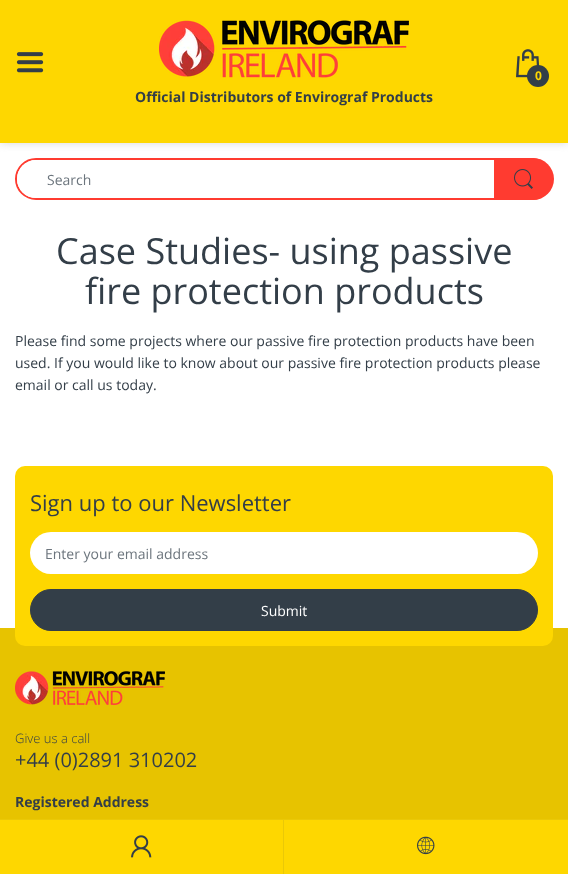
async function draw(canvas) {
  canvas.width = 568
  canvas.height = 874
  const ctx = canvas.getContext('2d')
  ctx.miterLimit = 4
  ctx.fontKerning = 'normal'
  async function loadImage(src) {
    const img = new Image()
    img.src = src
    await img.decode()
    return img
  }

  ctx.fillStyle = '#fff'
  ctx.fillRect(0, 0, 568, 874)
  ctx.fillStyle = '#c9c9c9bf'
  ctx.filter = 'blur(4px)'
  ctx.beginPath()
  ctx.rect(0, 0, 568, 143)
  ctx.fill()
  ctx.filter = 'none'
  ctx.fillStyle = '#fed700'
  ctx.fillRect(0, 0, 568, 143)
  ctx.drawImage(await loadImage('image0.png'), 16, 52, 28, 21)
  ctx.drawImage(await loadImage('image1.png'), 516, 49, 24, 29)
  ctx.fillStyle = '#333e48'
  ctx.beginPath()
  ctx.arc(538, 76, 11, 0, 2 * Math.PI)
  ctx.fill()
  ctx.font = 'bold 12px Open Sans'
  ctx.fillStyle = '#fed700'
  ctx.fillText('0', 535, 80)
  ctx.drawImage(await loadImage('image2.png'), 159, 20, 250, 58)
  ctx.font = 'bold 14px Open Sans'
  ctx.fillStyle = '#333e48'
  ctx.fillText('Official Distributors of Envirograf Products', 135, 102)
  ctx.beginPath()
  ctx.roundRect(16, 159, 536, 40, 20)
  ctx.strokeStyle = '#ff3b30'
  ctx.lineWidth = 2
  ctx.stroke()
  ctx.fillStyle = '#fff'
  ctx.beginPath()
  ctx.roundRect(17, 160, 534, 38, 19)
  ctx.fill()
  ctx.font = '14px Open Sans'
  ctx.fillStyle = '#6c757d'
  ctx.fillText('Search', 47, 185)
  ctx.fillStyle = '#ff3b30'
  ctx.beginPath()
  ctx.roundRect(494, 158, 60, 42, [0, 21, 21, 0])
  ctx.fill()
  ctx.drawImage(await loadImage('image3.png'), 514, 169, 19, 20)
  ctx.font = '36px Open Sans'
  ctx.fillStyle = '#333e48'
  ctx.fillText('Case Studies- using passive', 56, 264)
  ctx.fillText('fire protection products', 85, 304)
  ctx.font = '14px Open Sans'
  ctx.fillText('Please find some projects where our passive fire protection products have been', 15, 346)
  ctx.fillText('used. If you would like to know about our passive fire protection products please', 15, 368)
  ctx.fillText('email or call us today.', 15, 390)
  ctx.fillStyle = '#e7c300'
  ctx.fillRect(0, 628, 568, 191)
  ctx.fillStyle = '#fed700'
  ctx.beginPath()
  ctx.roundRect(15, 466, 538, 180, 10)
  ctx.fill()
  ctx.font = '22px Open Sans'
  ctx.fillStyle = '#333e48'
  ctx.fillText('Sign up to our Newsletter', 30, 511)
  ctx.fillStyle = '#fff'
  ctx.beginPath()
  ctx.roundRect(30, 532, 508, 42, 21)
  ctx.fill()
  ctx.font = '14px Open Sans'
  ctx.fillStyle = '#6c757d'
  ctx.fillText('Enter your email address', 45, 559)
  ctx.fillStyle = '#333e48'
  ctx.beginPath()
  ctx.roundRect(30.5, 589.5, 507, 41, 20.5)
  ctx.fill()
  ctx.strokeStyle = '#333e48'
  ctx.lineWidth = 1
  ctx.stroke()
  ctx.fillStyle = '#fff'
  ctx.fillText('Submit', 261, 616)
  ctx.drawImage(await loadImage('image4.png'), 15, 671, 150, 34)
  ctx.font = '300 13px Open Sans'
  ctx.fillStyle = '#333e48'
  ctx.fillText('Give us a call', 15, 743)
  ctx.font = '20px Open Sans'
  ctx.fillText('+44 (0)2891 310202', 15, 767)
  ctx.font = 'bold 14px Open Sans'
  ctx.fillText('Registered Address', 15, 807)
  ctx.fillStyle = '#fed700'
  ctx.fillRect(0, 820, 568, 54)
  ctx.fillStyle = '#eac807'
  ctx.fillRect(0, 819, 568, 1)
  ctx.fillRect(283, 820, 1, 54)
  ctx.drawImage(await loadImage('image5.png'), 131, 835, 21, 23)
  ctx.drawImage(await loadImage('image6.png'), 417, 836, 18, 19)
}

draw(document.querySelector('canvas'))
